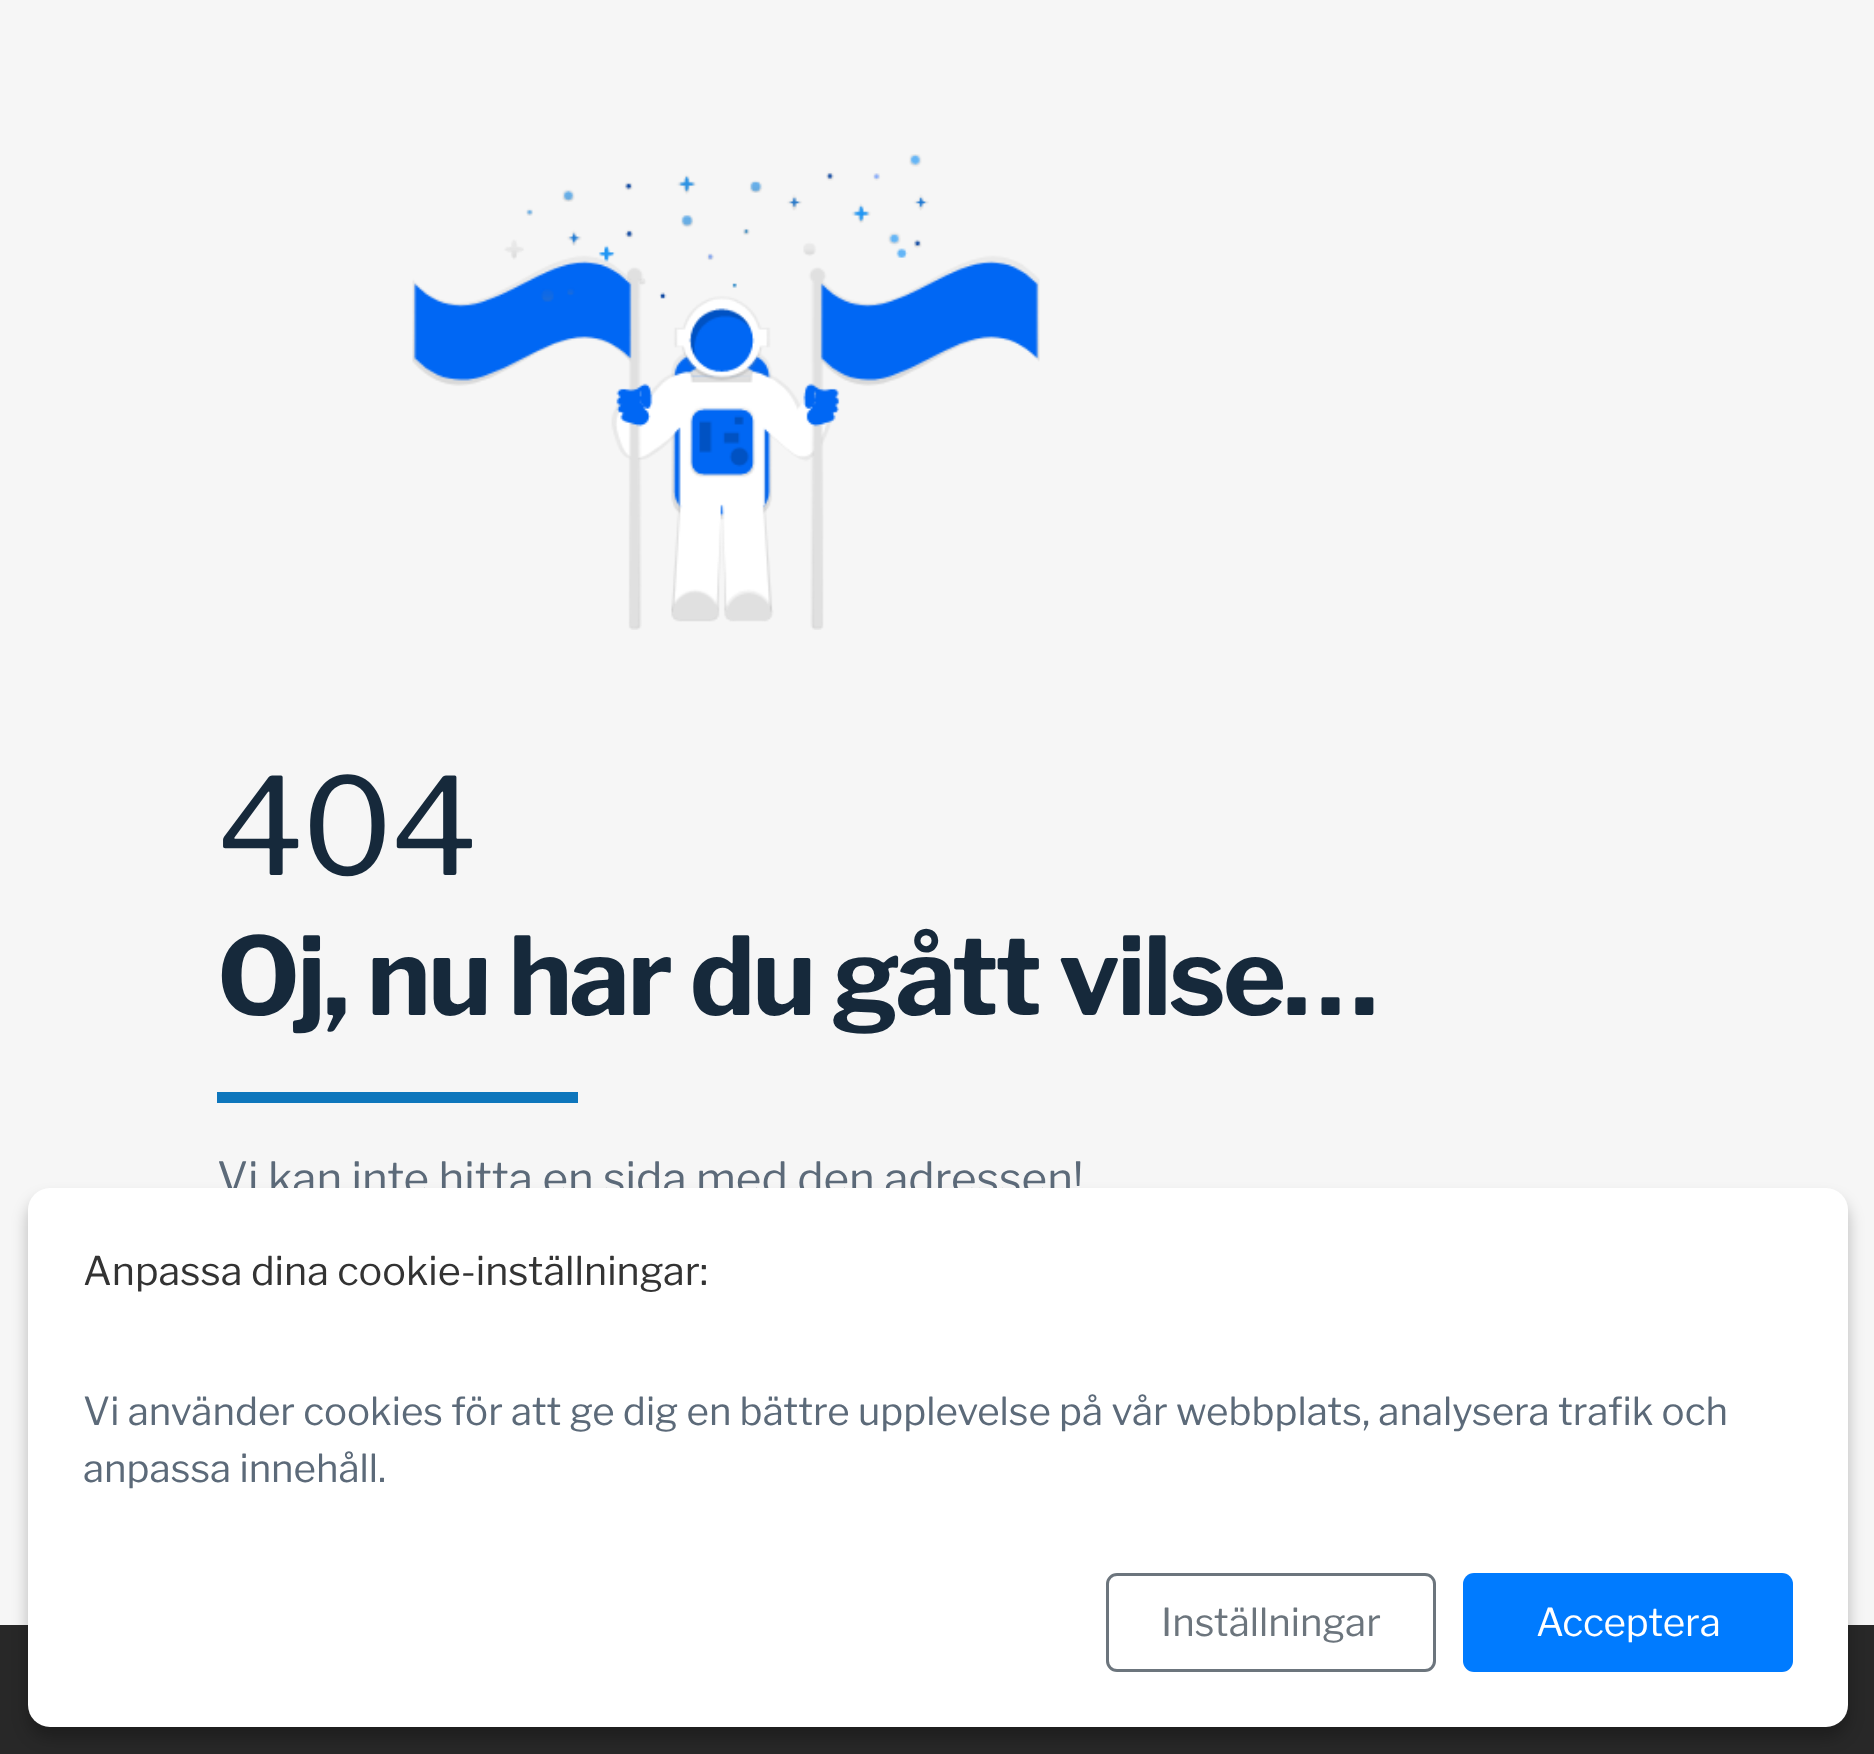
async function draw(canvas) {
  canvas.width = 1874
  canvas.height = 1754
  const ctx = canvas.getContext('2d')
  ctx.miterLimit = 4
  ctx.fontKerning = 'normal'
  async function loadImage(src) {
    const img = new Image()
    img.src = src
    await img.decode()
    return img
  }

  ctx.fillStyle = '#f6f6f6'
  ctx.fillRect(0, 0, 1874, 1754)
  ctx.drawImage(await loadImage('image0.png'), 412, 154, 628, 476)
  ctx.letterSpacing = '-2.75px'
  ctx.font = '134px Libre Franklin'
  ctx.fillStyle = '#16293b'
  ctx.fillText('404', 217, 875)
  ctx.font = 'bold 107.4px Libre Franklin'
  ctx.fillText('Oj, nu har du gått vilse…', 217, 1015)
  ctx.fillStyle = '#0e76bc'
  ctx.fillRect(217, 1092, 361, 11)
  ctx.letterSpacing = '0px'
  ctx.font = '44px Libre Franklin'
  ctx.fillStyle = '#5c6a79'
  ctx.fillText('Vi kan inte hitta en sida med den adressen!', 217, 1194)
  ctx.fillStyle = '#282828'
  ctx.fillRect(0, 1625, 1874, 129)
  ctx.fillStyle = '#00000040'
  ctx.filter = 'blur(8px)'
  ctx.beginPath()
  ctx.roundRect(28, 1199, 1820, 539, 22)
  ctx.fill()
  ctx.filter = 'none'
  ctx.fillStyle = '#fff'
  ctx.beginPath()
  ctx.roundRect(28, 1188, 1820, 539, 22)
  ctx.fill()
  ctx.font = '39.6px Libre Franklin'
  ctx.fillStyle = '#333'
  ctx.fillText('Anpassa dina cookie-inställningar:', 83, 1285)
  ctx.font = '38.5px Libre Franklin'
  ctx.fillStyle = '#5c6a79'
  ctx.fillText('Vi använder cookies för att ge dig en bättre upplevelse på vår webbplats, analysera trafik och', 83, 1425)
  ctx.fillText('anpassa innehåll.', 83, 1482)
  ctx.beginPath()
  ctx.roundRect(1107.5, 1574.5, 327, 96, 9.5)
  ctx.strokeStyle = '#6c757d'
  ctx.lineWidth = 3
  ctx.stroke()
  ctx.fillStyle = '#6c757d'
  ctx.fillText('Inställningar', 1161, 1636)
  ctx.fillStyle = '#007bff'
  ctx.beginPath()
  ctx.roundRect(1463, 1573, 330, 99, 11)
  ctx.fill()
  ctx.fillStyle = '#fff'
  ctx.fillText('Acceptera', 1536, 1636)
}

draw(document.querySelector('canvas'))
